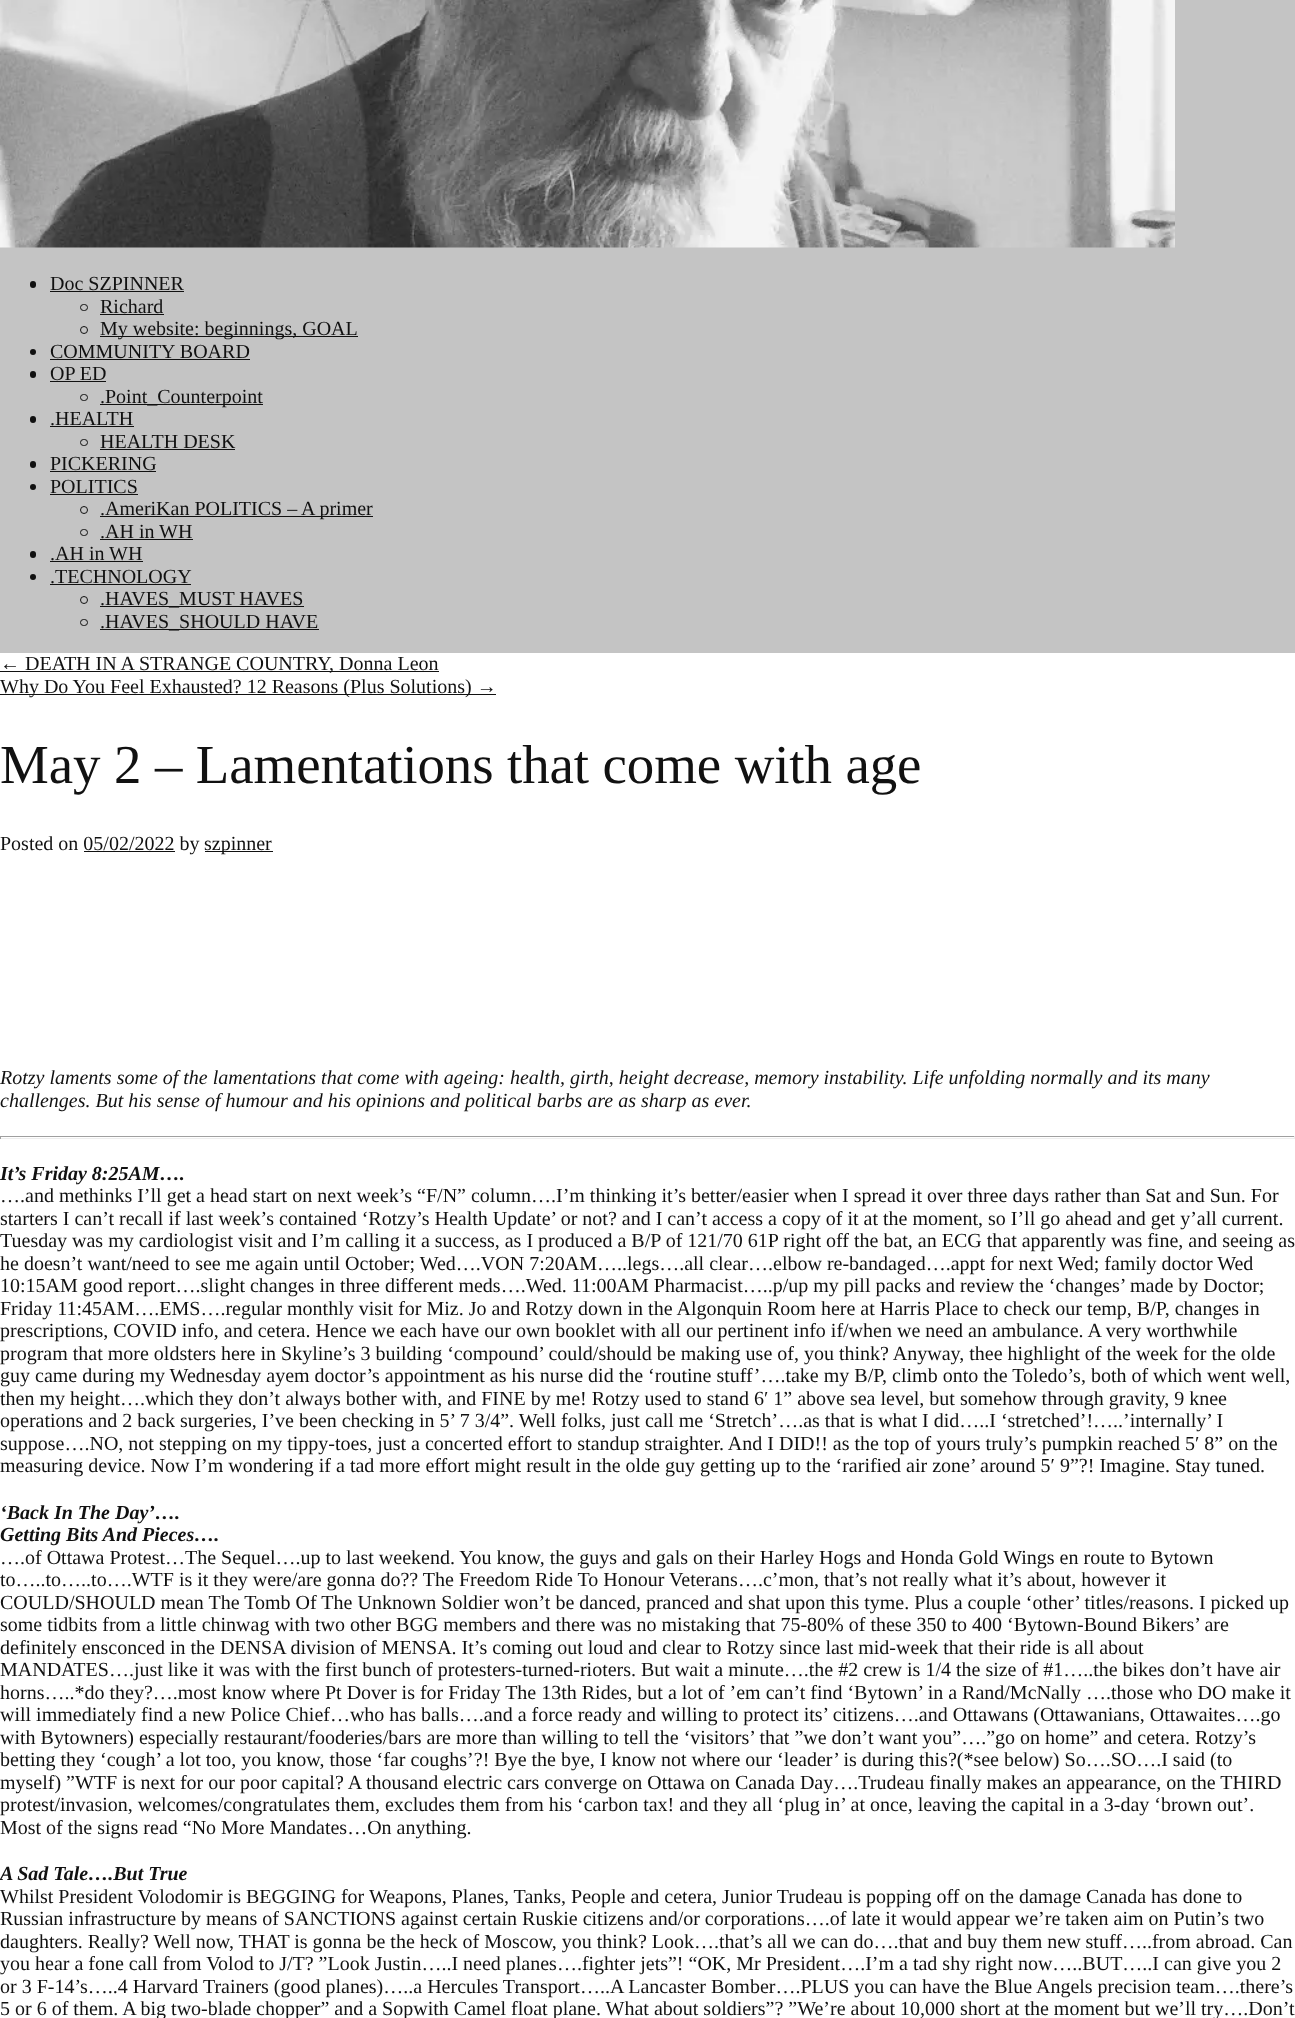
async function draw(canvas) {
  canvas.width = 1295
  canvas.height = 2018
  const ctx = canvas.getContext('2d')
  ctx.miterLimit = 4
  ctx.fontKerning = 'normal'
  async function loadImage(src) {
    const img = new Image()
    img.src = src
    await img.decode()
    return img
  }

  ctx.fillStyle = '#c4c4c4'
  ctx.fillRect(0, 0, 1295, 2018)
  ctx.drawImage(await loadImage('image0.png'), 0, 0, 1175, 248)
  ctx.fillStyle = '#111'
  ctx.beginPath()
  ctx.roundRect(30, 281, 6, 7, 3)
  ctx.fill()
  ctx.font = '20px Liberation Serif'
  ctx.fillText('Doc SZPINNER', 50, 290)
  ctx.fillRect(50, 291, 134, 1)
  ctx.beginPath()
  ctx.roundRect(80.5, 304.5, 7, 6, 3)
  ctx.strokeStyle = '#111'
  ctx.stroke()
  ctx.fillText('Richard', 100, 313)
  ctx.fillRect(100, 314, 64, 1)
  ctx.beginPath()
  ctx.arc(84, 330, 3.5, 0, 2 * Math.PI)
  ctx.stroke()
  ctx.fillRect(100, 336, 258, 1)
  ctx.fillText('My website: beginnings, GOAL', 100, 335)
  ctx.beginPath()
  ctx.arc(33, 352, 3, 0, 2 * Math.PI)
  ctx.fill()
  ctx.fillText('COMMUNITY BOARD', 50, 358)
  ctx.fillRect(50, 359, 200, 1)
  ctx.beginPath()
  ctx.roundRect(30, 371, 6, 7, 3)
  ctx.fill()
  ctx.fillText('OP ED', 50, 380)
  ctx.fillRect(50, 381, 56, 1)
  ctx.beginPath()
  ctx.roundRect(80.5, 394.5, 7, 6, 3)
  ctx.stroke()
  ctx.fillRect(100, 404, 163, 1)
  ctx.fillText('.Point_Counterpoint', 100, 403)
  ctx.beginPath()
  ctx.roundRect(30, 416, 6, 7, 3)
  ctx.fill()
  ctx.fillText('.HEALTH', 50, 425)
  ctx.fillRect(50, 426, 84, 1)
  ctx.beginPath()
  ctx.roundRect(80.5, 439.5, 7, 6, 3)
  ctx.stroke()
  ctx.fillText('HEALTH DESK', 100, 448)
  ctx.fillRect(100, 449, 135, 1)
  ctx.beginPath()
  ctx.roundRect(30, 461, 6, 7, 3)
  ctx.fill()
  ctx.fillText('PICKERING', 50, 470)
  ctx.fillRect(50, 471, 106, 1)
  ctx.beginPath()
  ctx.arc(33, 487, 3, 0, 2 * Math.PI)
  ctx.fill()
  ctx.fillText('POLITICS', 50, 493)
  ctx.fillRect(50, 494, 88, 1)
  ctx.beginPath()
  ctx.arc(84, 510, 3.5, 0, 2 * Math.PI)
  ctx.stroke()
  ctx.fillRect(100, 516, 273, 1)
  ctx.fillText('.AmeriKan POLITICS – A primer', 100, 515)
  ctx.beginPath()
  ctx.roundRect(80.5, 529.5, 7, 6, 3)
  ctx.stroke()
  ctx.fillText('.AH in WH', 100, 538)
  ctx.fillRect(100, 539, 93, 1)
  ctx.beginPath()
  ctx.roundRect(30, 551, 6, 7, 3)
  ctx.fill()
  ctx.fillText('.AH in WH', 50, 560)
  ctx.fillRect(50, 561, 93, 1)
  ctx.beginPath()
  ctx.arc(33, 577, 3, 0, 2 * Math.PI)
  ctx.fill()
  ctx.fillText('.TECHNOLOGY', 50, 583)
  ctx.fillRect(50, 584, 141, 1)
  ctx.beginPath()
  ctx.arc(84, 600, 3.5, 0, 2 * Math.PI)
  ctx.stroke()
  ctx.fillRect(100, 606, 204, 1)
  ctx.fillText('.HAVES_MUST HAVES', 100, 605)
  ctx.beginPath()
  ctx.roundRect(80.5, 619.5, 7, 6, 3)
  ctx.stroke()
  ctx.fillRect(100, 629, 219, 1)
  ctx.fillText('.HAVES_SHOULD HAVE', 100, 628)
  ctx.fillStyle = '#fff'
  ctx.fillRect(0, 653, 1295, 1365)
  ctx.fillStyle = '#111'
  ctx.fillRect(0, 671, 439, 1)
  ctx.fillText('← DEATH IN A STRANGE COUNTRY, Donna Leon', 0, 670)
  ctx.fillRect(0, 694, 496, 1)
  ctx.fillText('Why Do You Feel Exhausted? 12 Reasons (Plus Solutions) →', 0, 693)
  ctx.letterSpacing = '-0.1px'
  ctx.font = '54.9px Liberation Serif'
  ctx.fillText('May 2 – Lamentations that come with age', 0, 783)
  ctx.letterSpacing = '0px'
  ctx.font = '20px Liberation Serif'
  ctx.fillText('Posted on 05/02/2022 by', 0, 850)
  ctx.fillRect(205, 851, 68, 1)
  ctx.fillText('szpinner', 204, 850)
  ctx.fillRect(84, 851, 91, 1)
  ctx.font = 'italic 20px Liberation Serif'
  ctx.fillText('Rotzy laments some of the lamentations that come with ageing: health, girth, height decrease, memory instability. Life unfolding normally and its many', 0, 1084)
  ctx.fillText('challenges. But his sense of humour and his opinions and political barbs are as sharp as ever.', 0, 1107)
  ctx.fillStyle = '#9f9f9f'
  ctx.fillRect(0, 1136, 1295, 1)
  ctx.fillStyle = '#eee'
  ctx.fillRect(1294, 1136, 1, 3)
  ctx.fillRect(0, 1138, 1295, 1)
  ctx.fillStyle = '#9f9f9f'
  ctx.fillRect(0, 1136, 1, 3)
  ctx.font = 'italic bold 20px Liberation Serif'
  ctx.fillStyle = '#111'
  ctx.fillText('It’s Friday 8:25AM….', 0, 1180)
  ctx.font = '20px Liberation Serif'
  ctx.fillText('….and methinks I’ll get a head start on next week’s “F/N” column….I’m thinking it’s better/easier when I spread it over three days rather than Sat and Sun. For', 0, 1202)
  ctx.fillText('starters I can’t recall if last week’s contained ‘Rotzy’s Health Update’ or not? and I can’t access a copy of it at the moment, so I’ll go ahead and get y’all current.', 0, 1225)
  ctx.fillText('Tuesday was my cardiologist visit and I’m calling it a success, as I produced a B/P of 121/70 61P right off the bat, an ECG that apparently was fine, and seeing as', 0, 1247)
  ctx.fillText('he doesn’t want/need to see me again until October; Wed….VON 7:20AM…..legs….all clear….elbow re-bandaged….appt for next Wed; family doctor Wed', 0, 1270)
  ctx.fillText('10:15AM good report….slight changes in three different meds….Wed. 11:00AM Pharmacist…..p/up my pill packs and review the ‘changes’ made by Doctor;', 0, 1292)
  ctx.fillText('Friday 11:45AM….EMS….regular monthly visit for Miz. Jo and Rotzy down in the Algonquin Room here at Harris Place to check our temp, B/P, changes in', 0, 1315)
  ctx.fillText('prescriptions, COVID info, and cetera. Hence we each have our own booklet with all our pertinent info if/when we need an ambulance. A very worthwhile', 0, 1337)
  ctx.fillText('program that more oldsters here in Skyline’s 3 building ‘compound’ could/should be making use of, you think? Anyway, thee highlight of the week for the olde', 0, 1360)
  ctx.fillText('guy came during my Wednesday ayem doctor’s appointment as his nurse did the ‘routine stuff’….take my B/P, climb onto the Toledo’s, both of which went well,', 0, 1382)
  ctx.fillText('then my height….which they don’t always bother with, and FINE by me! Rotzy used to stand 6′ 1” above sea level, but somehow through gravity, 9 knee', 0, 1405)
  ctx.fillText('operations and 2 back surgeries, I’ve been checking in 5’ 7 3/4”. Well folks, just call me ‘Stretch’….as that is what I did…..I ‘stretched’!…..’internally’ I', 0, 1427)
  ctx.fillText('suppose….NO, not stepping on my tippy-toes, just a concerted effort to standup straighter. And I DID!! as the top of yours truly’s pumpkin reached 5′ 8” on the', 0, 1450)
  ctx.fillText('measuring device. Now I’m wondering if a tad more effort might result in the olde guy getting up to the ‘rarified air zone’ around 5′ 9”?! Imagine. Stay tuned.', 0, 1472)
  ctx.font = 'italic bold 20px Liberation Serif'
  ctx.fillText('‘Back In The Day’….', 0, 1519)
  ctx.fillText('Getting Bits And Pieces….', 0, 1541)
  ctx.font = '20px Liberation Serif'
  ctx.fillText('….of Ottawa Protest…The Sequel….up to last weekend. You know, the guys and gals on their Harley Hogs and Honda Gold Wings en route to Bytown', 0, 1564)
  ctx.fillText('to…..to…..to….WTF is it they were/are gonna do?? The Freedom Ride To Honour Veterans….c’mon, that’s not really what it’s about, however it', 0, 1586)
  ctx.fillText('COULD/SHOULD mean The Tomb Of The Unknown Soldier won’t be danced, pranced and shat upon this tyme. Plus a couple ‘other’ titles/reasons. I picked up', 0, 1609)
  ctx.fillText('some tidbits from a little chinwag with two other BGG members and there was no mistaking that 75-80% of these 350 to 400 ‘Bytown-Bound Bikers’ are', 0, 1631)
  ctx.fillText('definitely ensconced in the DENSA division of MENSA. It’s coming out loud and clear to Rotzy since last mid-week that their ride is all about', 0, 1654)
  ctx.fillText('MANDATES….just like it was with the first bunch of protesters-turned-rioters. But wait a minute….the #2 crew is 1/4 the size of #1…..the bikes don’t have air', 0, 1676)
  ctx.fillText('horns…..*do they?….most know where Pt Dover is for Friday The 13th Rides, but a lot of ’em can’t find ‘Bytown’ in a Rand/McNally ….those who DO make it', 0, 1699)
  ctx.fillText('will immediately find a new Police Chief…who has balls….and a force ready and willing to protect its’ citizens….and Ottawans (Ottawanians, Ottawaites….go', 0, 1721)
  ctx.fillText('with Bytowners) especially restaurant/fooderies/bars are more than willing to tell the ‘visitors’ that ”we don’t want you”….”go on home” and cetera. Rotzy’s', 0, 1744)
  ctx.fillText('betting they ‘cough’ a lot too, you know, those ‘far coughs’?! Bye the bye, I know not where our ‘leader’ is during this?(*see below) So….SO….I said (to', 0, 1766)
  ctx.fillText('myself) ”WTF is next for our poor capital? A thousand electric cars converge on Ottawa on Canada Day….Trudeau finally makes an appearance, on the THIRD', 0, 1789)
  ctx.fillText('protest/invasion, welcomes/congratulates them, excludes them from his ‘carbon tax! and they all ‘plug in’ at once, leaving the capital in a 3-day ‘brown out’.', 0, 1811)
  ctx.fillText('Most of the signs read “No More Mandates…On anything.', 0, 1834)
  ctx.font = 'italic bold 20px Liberation Serif'
  ctx.fillText('A Sad Tale….But True', 0, 1880)
  ctx.font = '20px Liberation Serif'
  ctx.fillText('Whilst President Volodomir is BEGGING for Weapons, Planes, Tanks, People and cetera, Junior Trudeau is popping off on the damage Canada has done to', 0, 1903)
  ctx.fillText('Russian infrastructure by means of SANCTIONS against certain Ruskie citizens and/or corporations….of late it would appear we’re taken aim on Putin’s two', 0, 1925)
  ctx.fillText('daughters. Really? Well now, THAT is gonna be the heck of Moscow, you think? Look….that’s all we can do….that and buy them new stuff…..from abroad. Can', 0, 1948)
  ctx.fillText('you hear a fone call from Volod to J/T? ”Look Justin…..I need planes….fighter jets”! “OK, Mr President….I’m a tad shy right now…..BUT…..I can give you 2', 0, 1970)
  ctx.fillText('or 3 F-14’s…..4 Harvard Trainers (good planes)…..a Hercules Transport…..A Lancaster Bomber….PLUS you can have the Blue Angels precision team….there’s', 0, 1993)
  ctx.fillText('5 or 6 of them. A big two-blade chopper” and a Sopwith Camel float plane. What about soldiers”? ”We’re about 10,000 short at the moment but we’ll try….Don’t', 0, 2015)
}

draw(document.querySelector('canvas'))
